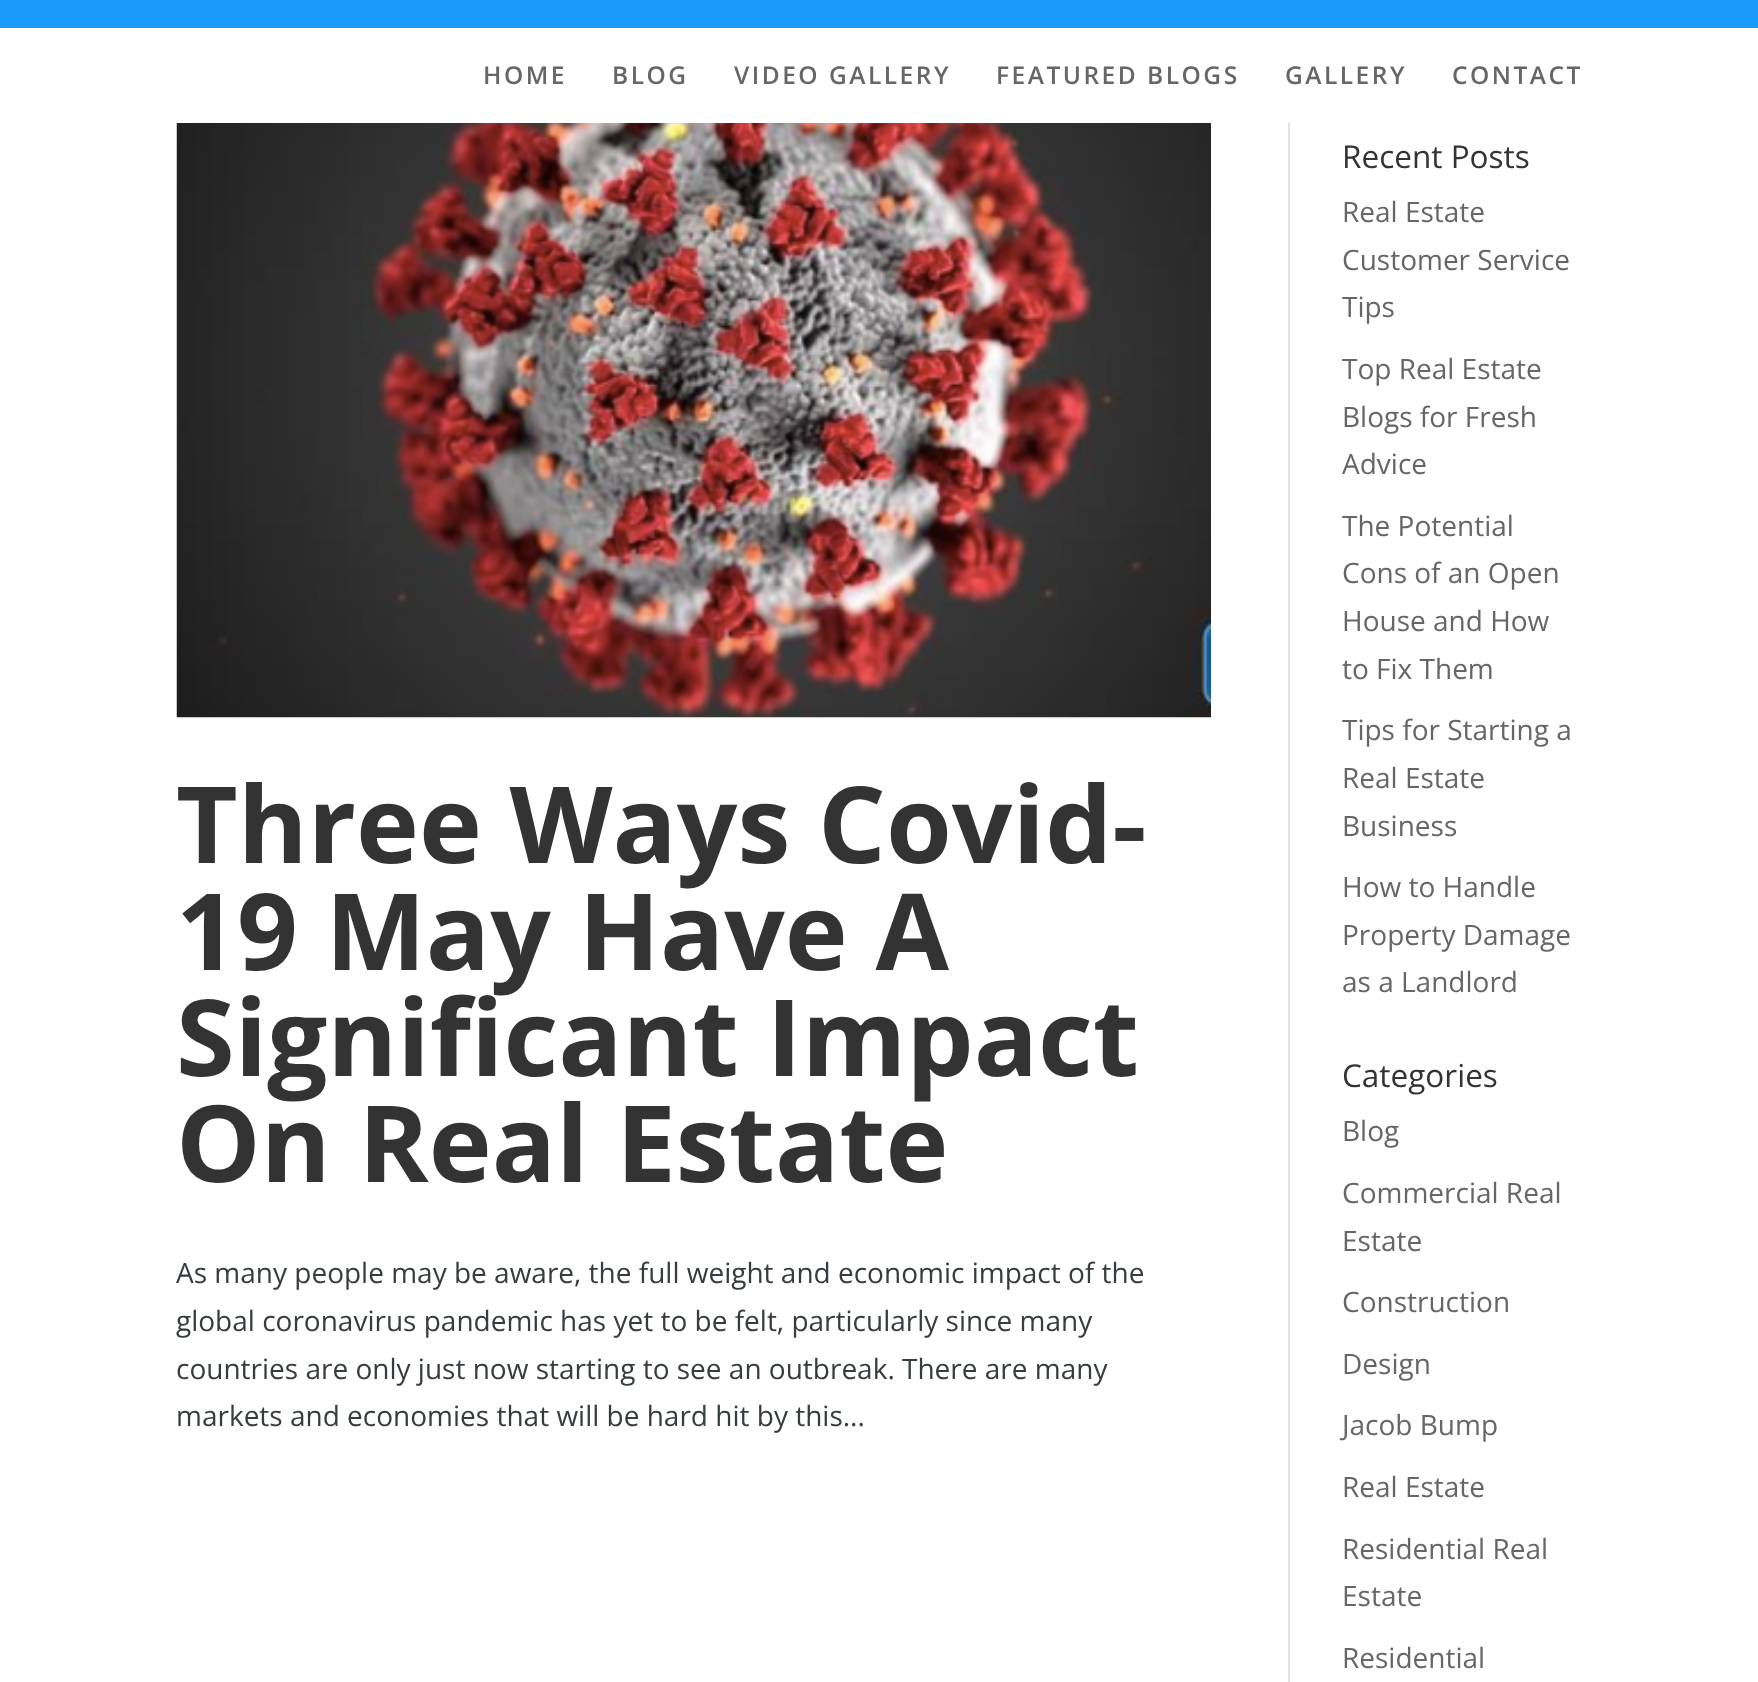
async function draw(canvas) {
  canvas.width = 1758
  canvas.height = 1682
  const ctx = canvas.getContext('2d')
  ctx.miterLimit = 4
  ctx.fontKerning = 'normal'
  async function loadImage(src) {
    const img = new Image()
    img.src = src
    await img.decode()
    return img
  }

  ctx.fillStyle = '#fff'
  ctx.fillRect(0, 0, 1758, 1682)
  ctx.fillStyle = '#1a9bfc'
  ctx.fillRect(0, 0, 1758, 28)
  ctx.letterSpacing = '2.5px'
  ctx.font = '600 24.5px Open Sans'
  ctx.fillStyle = '#666'
  ctx.fillText('HOME', 483, 84)
  ctx.fillText('BLOG', 612, 84)
  ctx.fillText('VIDEO GALLERY', 734, 84)
  ctx.fillText('FEATURED BLOGS', 996, 84)
  ctx.fillText('GALLERY', 1285, 84)
  ctx.fillText('CONTACT', 1452, 84)
  ctx.fillStyle = '#e2e2e2'
  ctx.fillRect(1288, 123, 2, 1559)
  ctx.drawImage(await loadImage('image0.png'), 176, 123, 1035, 595)
  ctx.letterSpacing = '0px'
  ctx.font = 'bold 106.5px Open Sans'
  ctx.fillStyle = '#333'
  ctx.fillText('Three Ways Covid-', 176, 863)
  ctx.fillText('19 May Have A', 176, 970)
  ctx.fillText('Significant Impact', 176, 1076)
  ctx.fillText('On Real Estate', 176, 1182)
  ctx.font = '28px Open Sans'
  ctx.fillStyle = '#373d3f'
  ctx.fillText('As many people may be aware, the full weight and economic impact of the', 176, 1283)
  ctx.fillText('global coronavirus pandemic has yet to be felt, particularly since many', 176, 1331)
  ctx.fillText('countries are only just now starting to see an outbreak. There are many', 176, 1379)
  ctx.fillText('markets and economies that will be hard hit by this...', 176, 1426)
  ctx.font = '31.5px Open Sans'
  ctx.fillStyle = '#333'
  ctx.fillText('Recent Posts', 1342, 168)
  ctx.font = '28px Open Sans'
  ctx.fillStyle = '#666'
  ctx.fillText('Real Estate', 1342, 222)
  ctx.fillText('Customer Service', 1342, 270)
  ctx.fillText('Tips', 1342, 317)
  ctx.fillText('Top Real Estate', 1342, 379)
  ctx.fillText('Blogs for Fresh', 1342, 427)
  ctx.fillText('Advice', 1342, 474)
  ctx.fillText('The Potential', 1342, 536)
  ctx.fillText('Cons of an Open', 1342, 583)
  ctx.fillText('House and How', 1342, 631)
  ctx.fillText('to Fix Them', 1342, 679)
  ctx.fillText('Tips for Starting a', 1342, 740)
  ctx.fillText('Real Estate', 1342, 788)
  ctx.fillText('Business', 1342, 836)
  ctx.fillText('How to Handle', 1342, 897)
  ctx.fillText('Property Damage', 1342, 945)
  ctx.fillText('as a Landlord', 1342, 992)
  ctx.font = '31.5px Open Sans'
  ctx.fillStyle = '#333'
  ctx.fillText('Categories', 1342, 1087)
  ctx.font = '28px Open Sans'
  ctx.fillStyle = '#666'
  ctx.fillText('Blog', 1342, 1141)
  ctx.fillText('Commercial Real', 1342, 1203)
  ctx.fillText('Estate', 1342, 1251)
  ctx.fillText('Construction', 1342, 1312)
  ctx.fillText('Design', 1342, 1374)
  ctx.fillText('Jacob Bump', 1342, 1435)
  ctx.fillText('Real Estate', 1342, 1497)
  ctx.fillText('Residential Real', 1342, 1559)
  ctx.fillText('Estate', 1342, 1606)
  ctx.fillText('Residential', 1342, 1668)
}

draw(document.querySelector('canvas'))
